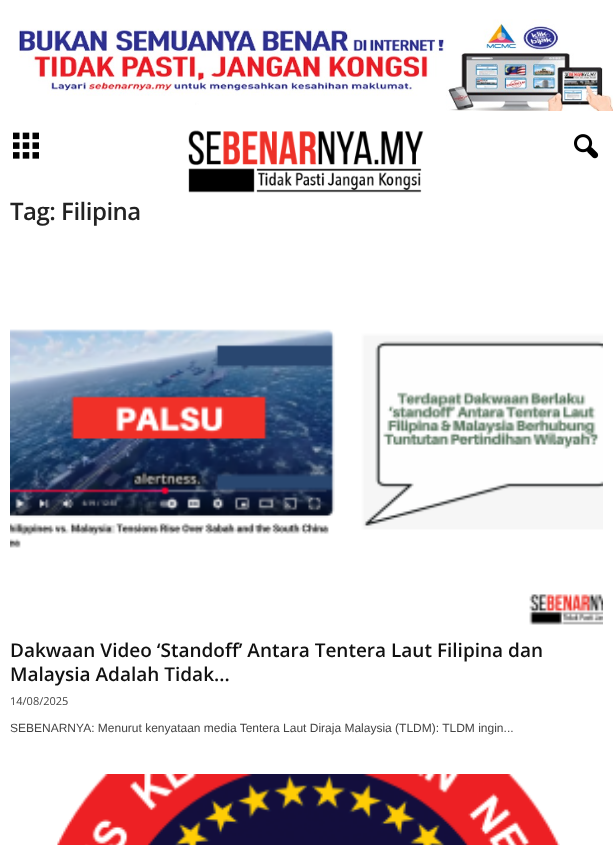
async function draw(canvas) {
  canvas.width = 613
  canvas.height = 845
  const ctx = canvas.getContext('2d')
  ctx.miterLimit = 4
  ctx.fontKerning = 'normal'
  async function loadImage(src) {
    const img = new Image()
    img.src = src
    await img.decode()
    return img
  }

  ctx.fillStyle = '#fff'
  ctx.fillRect(0, 0, 613, 845)
  ctx.drawImage(await loadImage('image0.png'), 19, 19, 594, 92)
  ctx.drawImage(await loadImage('image1.png'), 13, 132, 26, 27)
  ctx.drawImage(await loadImage('image2.png'), 188, 130, 236, 63)
  ctx.drawImage(await loadImage('image3.png'), 574, 134, 25, 25)
  ctx.letterSpacing = '-0.5px'
  ctx.font = '600 24px Open Sans'
  ctx.fillStyle = '#222'
  ctx.fillText('Tag: Filipina', 10, 220)
  ctx.drawImage(await loadImage('image4.png'), 10, 329, 593, 296)
  ctx.letterSpacing = '0px'
  ctx.font = '600 19px Open Sans'
  ctx.fillStyle = '#111'
  ctx.fillText('Dakwaan Video ‘Standoff’ Antara Tentera Laut Filipina dan', 10, 657)
  ctx.fillText('Malaysia Adalah Tidak...', 10, 681)
  ctx.font = '11px Open Sans'
  ctx.fillStyle = '#444'
  ctx.fillText('14/08/2025', 10, 705)
  ctx.font = '12px Liberation Sans'
  ctx.fillText('SEBENARNYA: Menurut kenyataan media Tentera Laut Diraja Malaysia (TLDM): TLDM ingin...', 10, 732)
  ctx.drawImage(await loadImage('image5.png'), 57, 774, 503, 71)
}

draw(document.querySelector('canvas'))
